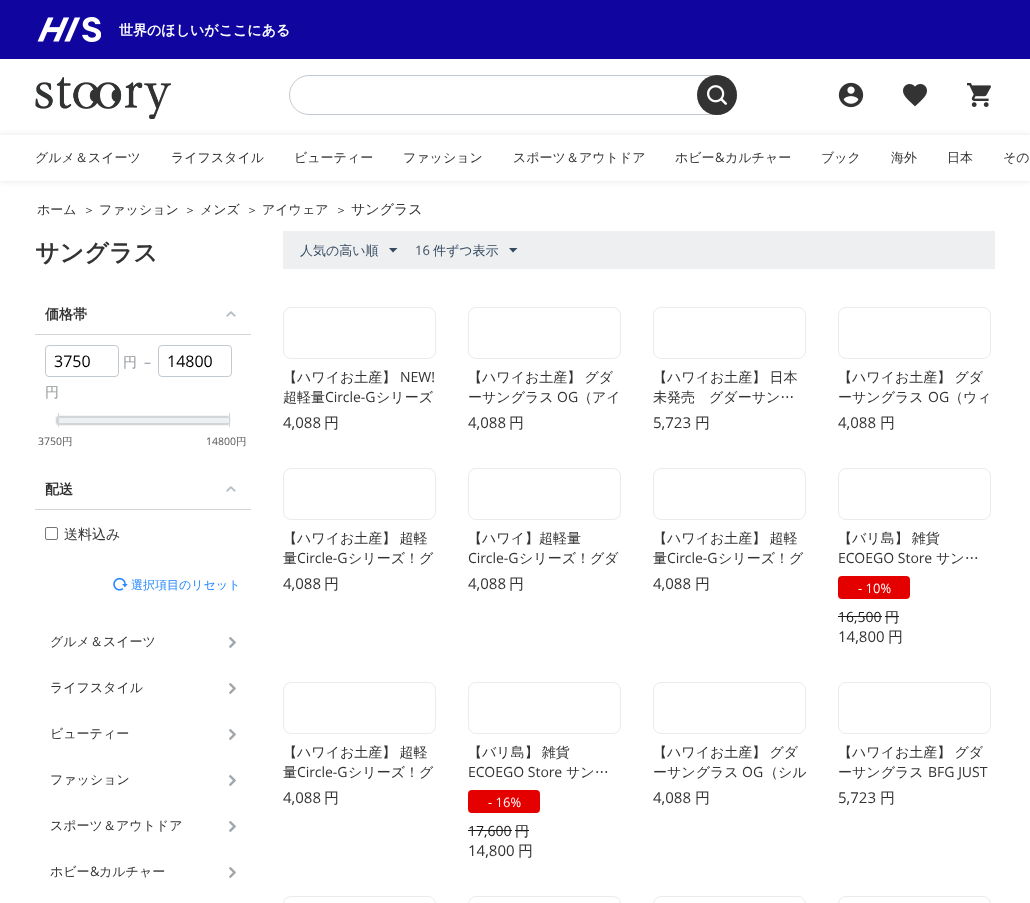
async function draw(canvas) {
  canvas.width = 1030
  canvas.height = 903
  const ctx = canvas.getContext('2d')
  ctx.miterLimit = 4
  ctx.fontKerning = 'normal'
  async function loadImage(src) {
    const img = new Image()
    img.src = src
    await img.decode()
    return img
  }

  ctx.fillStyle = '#fff'
  ctx.fillRect(0, 0, 1030, 903)
  ctx.fillStyle = '#10069f'
  ctx.fillRect(0, 0, 1030, 59)
  ctx.drawImage(await loadImage('image0.png'), 37, 17, 64, 25)
  ctx.font = 'bold 14px WenQuanYi Zen Hei'
  ctx.fillStyle = '#fff'
  ctx.fillText('世界のほしいがここにある', 119, 35)
  ctx.drawImage(await loadImage('image1.png'), 35, 77, 136, 42)
  ctx.beginPath()
  ctx.roundRect(289.5, 75.5, 447, 39, 19.5)
  ctx.strokeStyle = '#c2c9d0'
  ctx.stroke()
  ctx.fillStyle = '#333'
  ctx.beginPath()
  ctx.arc(717, 95, 20, 0, 2 * Math.PI)
  ctx.fill()
  ctx.drawImage(await loadImage('image2.png'), 707, 85, 20, 20)
  ctx.drawImage(await loadImage('image3.png'), 838, 82, 26, 26)
  ctx.drawImage(await loadImage('image4.png'), 903, 84, 24, 23)
  ctx.drawImage(await loadImage('image5.png'), 967, 83, 24, 24)
  ctx.save()
  ctx.beginPath()
  ctx.moveTo(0, 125)
  ctx.lineTo(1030, 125)
  ctx.lineTo(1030, 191)
  ctx.lineTo(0, 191)
  ctx.closePath()
  ctx.moveTo(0, 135)
  ctx.lineTo(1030, 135)
  ctx.lineTo(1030, 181)
  ctx.lineTo(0, 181)
  ctx.closePath()
  ctx.clip('evenodd')
  ctx.fillStyle = '#0000001a'
  ctx.filter = 'blur(3px)'
  ctx.beginPath()
  ctx.rect(0, 135, 1030, 46)
  ctx.fill()
  ctx.filter = 'none'
  ctx.restore()
  ctx.font = '500 13px WenQuanYi Zen Hei'
  ctx.fillText('グルメ＆スイーツ', 35, 162)
  ctx.fillText('ライフスタイル', 171, 162)
  ctx.fillText('ビューティー', 294, 162)
  ctx.fillText('ファッション', 403, 162)
  ctx.fillText('スポーツ＆アウトドア', 513, 162)
  ctx.fillText('ホビー', 675, 162)
  ctx.font = '13px Open Sans'
  ctx.fillText('&', 715, 162)
  ctx.font = '500 13px WenQuanYi Zen Hei'
  ctx.fillText('カルチャー', 725, 162)
  ctx.fillText('ブック', 821, 162)
  ctx.fillText('海外', 891, 162)
  ctx.fillText('日本', 947, 162)
  ctx.fillText('その', 1003, 162)
  ctx.fillText('ホーム', 37, 214)
  ctx.font = '500 12px WenQuanYi Zen Hei'
  ctx.fillText('＞', 83, 214)
  ctx.font = '500 13px WenQuanYi Zen Hei'
  ctx.fillText('ファッション', 99, 214)
  ctx.font = '500 12px WenQuanYi Zen Hei'
  ctx.fillText('＞', 184, 214)
  ctx.font = '500 13px WenQuanYi Zen Hei'
  ctx.fillText('メンズ', 200, 214)
  ctx.font = '500 12px WenQuanYi Zen Hei'
  ctx.fillText('＞', 246, 214)
  ctx.font = '500 13px WenQuanYi Zen Hei'
  ctx.fillText('アイウェア', 262, 214)
  ctx.font = '500 12px WenQuanYi Zen Hei'
  ctx.fillText('＞', 335, 214)
  ctx.font = '500 14px WenQuanYi Zen Hei'
  ctx.fillText('サングラス', 351, 214)
  ctx.font = 'bold 24px WenQuanYi Zen Hei'
  ctx.fillText('サングラス', 35, 261)
  ctx.fillStyle = '#d4d4d4'
  ctx.fillRect(35, 334, 216, 1)
  ctx.font = 'bold 14px WenQuanYi Zen Hei'
  ctx.fillStyle = '#333'
  ctx.fillText('価格帯', 45, 319)
  ctx.drawImage(await loadImage('image6.png'), 226, 311, 10, 6)
  ctx.beginPath()
  ctx.roundRect(158.5, 345.5, 73, 31, 3.5)
  ctx.stroke()
  ctx.font = '16px Open Sans'
  ctx.fillStyle = '#000'
  ctx.fillText('14800', 167, 367)
  ctx.font = '500 14px WenQuanYi Zen Hei'
  ctx.fillStyle = '#909598'
  ctx.fillText('円', 45, 397)
  ctx.beginPath()
  ctx.roundRect(45.5, 345.5, 73, 31, 3.5)
  ctx.stroke()
  ctx.font = '16px Open Sans'
  ctx.fillStyle = '#000'
  ctx.fillText('3750', 54, 367)
  ctx.font = '500 14px WenQuanYi Zen Hei'
  ctx.fillStyle = '#909598'
  ctx.fillText('円', 123, 367)
  ctx.font = '14px Open Sans'
  ctx.fillText('–', 144, 367)
  ctx.fillStyle = '#00000080'
  ctx.filter = 'blur(1px)'
  ctx.beginPath()
  ctx.rect(57, 417, 172, 7)
  ctx.fill()
  ctx.filter = 'none'
  ctx.fillStyle = '#ecf0f1'
  ctx.fillRect(57, 418, 172, 5)
  ctx.fillStyle = '#d0d6db'
  ctx.fillRect(57, 417, 172, 1)
  ctx.fillRect(57, 423, 172, 1)
  ctx.fillRect(57, 417, 1, 7)
  ctx.fillRect(58, 413, 1, 14)
  ctx.font = '10.5px Open Sans'
  ctx.fillStyle = '#555'
  ctx.fillText('3750', 38, 445)
  ctx.font = '500 10.5px WenQuanYi Zen Hei'
  ctx.fillText('円', 62, 445)
  ctx.fillStyle = '#d0d6db'
  ctx.fillRect(229, 413, 1, 14)
  ctx.font = '10.5px Open Sans'
  ctx.fillStyle = '#555'
  ctx.fillText('14800', 206, 445)
  ctx.font = '500 10.5px WenQuanYi Zen Hei'
  ctx.fillText('円', 236, 445)
  ctx.fillStyle = '#d4d4d4'
  ctx.fillRect(35, 509, 216, 1)
  ctx.font = 'bold 14px WenQuanYi Zen Hei'
  ctx.fillStyle = '#333'
  ctx.fillText('配送', 45, 494)
  ctx.drawImage(await loadImage('image6.png'), 226, 486, 10, 6)
  ctx.beginPath()
  ctx.roundRect(45.5, 527.5, 12, 12, 1.5)
  ctx.strokeStyle = '#767676'
  ctx.stroke()
  ctx.font = '500 14px WenQuanYi Zen Hei'
  ctx.fillText('送料込み', 64, 539)
  ctx.drawImage(await loadImage('image7.png'), 113, 577, 15, 14)
  ctx.font = '500 12px WenQuanYi Zen Hei'
  ctx.fillStyle = '#2488ff'
  ctx.fillText('選択項目のリセット', 131, 589)
  ctx.font = '500 13px WenQuanYi Zen Hei'
  ctx.fillStyle = '#333'
  ctx.fillText('グルメ＆スイーツ', 50, 646)
  ctx.drawImage(await loadImage('image8.png'), 229, 637, 7, 11)
  ctx.fillText('ライフスタイル', 50, 692)
  ctx.drawImage(await loadImage('image8.png'), 229, 683, 7, 11)
  ctx.fillText('ビューティー', 50, 738)
  ctx.drawImage(await loadImage('image8.png'), 229, 729, 7, 11)
  ctx.fillText('ファッション', 50, 784)
  ctx.drawImage(await loadImage('image8.png'), 229, 775, 7, 11)
  ctx.fillText('スポーツ＆アウトドア', 50, 830)
  ctx.drawImage(await loadImage('image8.png'), 229, 821, 7, 11)
  ctx.fillText('ホビー', 50, 876)
  ctx.font = '13px Open Sans'
  ctx.fillText('&', 90, 876)
  ctx.font = '500 13px WenQuanYi Zen Hei'
  ctx.fillText('カルチャー', 99, 876)
  ctx.drawImage(await loadImage('image8.png'), 229, 867, 7, 11)
  ctx.fillStyle = '#edeff1'
  ctx.fillRect(283, 231, 712, 38)
  ctx.fillStyle = '#34495e'
  ctx.fillText('人気の高い順', 300, 255)
  ctx.beginPath()
  ctx.moveTo(393, 252.5)
  ctx.lineTo(389, 248)
  ctx.lineTo(397.5, 248)
  ctx.closePath()
  ctx.fill()
  ctx.font = '13px Open Sans'
  ctx.fillText('16', 415, 255)
  ctx.font = '500 13px WenQuanYi Zen Hei'
  ctx.fillText('件ずつ表示', 433, 255)
  ctx.beginPath()
  ctx.moveTo(513, 252.5)
  ctx.lineTo(509, 248)
  ctx.lineTo(517.5, 248)
  ctx.closePath()
  ctx.fill()
  ctx.beginPath()
  ctx.roundRect(283.5, 307.5, 152, 51, 7.5)
  ctx.strokeStyle = '#ebebeb'
  ctx.stroke()
  ctx.font = '500 14px WenQuanYi Zen Hei'
  ctx.fillStyle = '#333'
  ctx.fillText('【ハワイお土産】', 283, 382)
  ctx.font = '14px Open Sans'
  ctx.fillText('NEW!', 400, 382)
  ctx.font = '500 14px WenQuanYi Zen Hei'
  ctx.fillText('超軽量', 283, 402)
  ctx.font = '14px Open Sans'
  ctx.fillText('Circle-G', 325, 402)
  ctx.font = '500 14px WenQuanYi Zen Hei'
  ctx.fillText('シリーズ', 376, 402)
  ctx.font = '15px Open Sans'
  ctx.fillText('4,088', 283, 428)
  ctx.font = '500 15px WenQuanYi Zen Hei'
  ctx.fillText('円', 324, 428)
  ctx.beginPath()
  ctx.roundRect(468.5, 307.5, 152, 51, 7.5)
  ctx.stroke()
  ctx.wordSpacing = '-1px'
  ctx.font = '500 14px WenQuanYi Zen Hei'
  ctx.fillText('【ハワイお土産】 グダ', 468, 382)
  ctx.wordSpacing = '0px'
  ctx.fillText('ーサングラス', 468, 402)
  ctx.font = '14px Open Sans'
  ctx.fillText('OG', 557, 402)
  ctx.font = '500 14px WenQuanYi Zen Hei'
  ctx.fillText('（アイ', 578, 402)
  ctx.font = '15px Open Sans'
  ctx.fillText('4,088', 468, 428)
  ctx.font = '500 15px WenQuanYi Zen Hei'
  ctx.fillText('円', 509, 428)
  ctx.beginPath()
  ctx.roundRect(653.5, 307.5, 152, 51, 7.5)
  ctx.stroke()
  ctx.wordSpacing = '-1px'
  ctx.font = '500 14px WenQuanYi Zen Hei'
  ctx.fillText('【ハワイお土産】 日本', 653, 382)
  ctx.wordSpacing = '0px'
  ctx.fillText('未発売　グダーサン…', 653, 402)
  ctx.font = '15px Open Sans'
  ctx.fillText('5,723', 653, 428)
  ctx.font = '500 15px WenQuanYi Zen Hei'
  ctx.fillText('円', 695, 428)
  ctx.beginPath()
  ctx.roundRect(838.5, 307.5, 152, 51, 7.5)
  ctx.stroke()
  ctx.wordSpacing = '-1px'
  ctx.font = '500 14px WenQuanYi Zen Hei'
  ctx.fillText('【ハワイお土産】 グダ', 838, 382)
  ctx.wordSpacing = '0px'
  ctx.fillText('ーサングラス', 838, 402)
  ctx.font = '14px Open Sans'
  ctx.fillText('OG', 928, 402)
  ctx.font = '500 14px WenQuanYi Zen Hei'
  ctx.fillText('（ウィ', 949, 402)
  ctx.font = '15px Open Sans'
  ctx.fillText('4,088', 838, 428)
  ctx.font = '500 15px WenQuanYi Zen Hei'
  ctx.fillText('円', 880, 428)
  ctx.beginPath()
  ctx.roundRect(283.5, 468.5, 152, 51, 7.5)
  ctx.stroke()
  ctx.wordSpacing = '-1px'
  ctx.font = '500 14px WenQuanYi Zen Hei'
  ctx.fillText('【ハワイお土産】 超軽', 283, 543)
  ctx.wordSpacing = '0px'
  ctx.fillText('量', 283, 563)
  ctx.font = '14px Open Sans'
  ctx.fillText('Circle-G', 297, 563)
  ctx.font = '500 14px WenQuanYi Zen Hei'
  ctx.fillText('シリーズ！グ', 348, 563)
  ctx.font = '15px Open Sans'
  ctx.fillText('4,088', 283, 589)
  ctx.font = '500 15px WenQuanYi Zen Hei'
  ctx.fillText('円', 324, 589)
  ctx.beginPath()
  ctx.roundRect(468.5, 468.5, 152, 51, 7.5)
  ctx.stroke()
  ctx.font = '500 14px WenQuanYi Zen Hei'
  ctx.fillText('【ハワイ】超軽量', 468, 543)
  ctx.font = '14px Open Sans'
  ctx.fillText('Circle-G', 468, 563)
  ctx.font = '500 14px WenQuanYi Zen Hei'
  ctx.fillText('シリーズ！グダ', 519, 563)
  ctx.font = '15px Open Sans'
  ctx.fillText('4,088', 468, 589)
  ctx.font = '500 15px WenQuanYi Zen Hei'
  ctx.fillText('円', 509, 589)
  ctx.beginPath()
  ctx.roundRect(653.5, 468.5, 152, 51, 7.5)
  ctx.stroke()
  ctx.wordSpacing = '-1px'
  ctx.font = '500 14px WenQuanYi Zen Hei'
  ctx.fillText('【ハワイお土産】 超軽', 653, 543)
  ctx.wordSpacing = '0px'
  ctx.fillText('量', 653, 563)
  ctx.font = '14px Open Sans'
  ctx.fillText('Circle-G', 667, 563)
  ctx.font = '500 14px WenQuanYi Zen Hei'
  ctx.fillText('シリーズ！グ', 718, 563)
  ctx.font = '15px Open Sans'
  ctx.fillText('4,088', 653, 589)
  ctx.font = '500 15px WenQuanYi Zen Hei'
  ctx.fillText('円', 695, 589)
  ctx.beginPath()
  ctx.roundRect(838.5, 468.5, 152, 51, 7.5)
  ctx.stroke()
  ctx.wordSpacing = '-1px'
  ctx.font = '500 14px WenQuanYi Zen Hei'
  ctx.fillText('【バリ島】 雑貨', 838, 543)
  ctx.wordSpacing = '0px'
  ctx.font = '14px Open Sans'
  ctx.fillText('ECOEGO Store', 838, 563)
  ctx.font = '500 14px WenQuanYi Zen Hei'
  ctx.fillText('サン…', 936, 563)
  ctx.fillStyle = '#e50000'
  ctx.beginPath()
  ctx.roundRect(838, 576, 72, 23, 4)
  ctx.fill()
  ctx.font = '13px Open Sans'
  ctx.fillStyle = '#fff'
  ctx.fillText('- 10%', 858, 593)
  ctx.font = '14px Open Sans'
  ctx.fillStyle = '#1a1a1a'
  ctx.fillText('16,500', 838, 622)
  ctx.fillRect(838, 616, 44, 1)
  ctx.font = '500 14px WenQuanYi Zen Hei'
  ctx.fillText('円', 885, 622)
  ctx.fillRect(885, 616, 14, 1)
  ctx.font = '15px Open Sans'
  ctx.fillStyle = '#333'
  ctx.fillText('14,800', 838, 642)
  ctx.font = '500 15px WenQuanYi Zen Hei'
  ctx.fillText('円', 888, 642)
  ctx.beginPath()
  ctx.roundRect(283.5, 682.5, 152, 51, 7.5)
  ctx.stroke()
  ctx.wordSpacing = '-1px'
  ctx.font = '500 14px WenQuanYi Zen Hei'
  ctx.fillText('【ハワイお土産】 超軽', 283, 757)
  ctx.wordSpacing = '0px'
  ctx.fillText('量', 283, 777)
  ctx.font = '14px Open Sans'
  ctx.fillText('Circle-G', 297, 777)
  ctx.font = '500 14px WenQuanYi Zen Hei'
  ctx.fillText('シリーズ！グ', 348, 777)
  ctx.font = '15px Open Sans'
  ctx.fillText('4,088', 283, 803)
  ctx.font = '500 15px WenQuanYi Zen Hei'
  ctx.fillText('円', 324, 803)
  ctx.beginPath()
  ctx.roundRect(468.5, 682.5, 152, 51, 7.5)
  ctx.stroke()
  ctx.wordSpacing = '-1px'
  ctx.font = '500 14px WenQuanYi Zen Hei'
  ctx.fillText('【バリ島】 雑貨', 468, 757)
  ctx.wordSpacing = '0px'
  ctx.font = '14px Open Sans'
  ctx.fillText('ECOEGO Store', 468, 777)
  ctx.font = '500 14px WenQuanYi Zen Hei'
  ctx.fillText('サン…', 566, 777)
  ctx.fillStyle = '#e50000'
  ctx.beginPath()
  ctx.roundRect(468, 790, 72, 23, 4)
  ctx.fill()
  ctx.font = '13px Open Sans'
  ctx.fillStyle = '#fff'
  ctx.fillText('- 16%', 488, 807)
  ctx.font = '14px Open Sans'
  ctx.fillStyle = '#1a1a1a'
  ctx.fillText('17,600', 468, 836)
  ctx.fillRect(468, 830, 44, 1)
  ctx.font = '500 14px WenQuanYi Zen Hei'
  ctx.fillText('円', 515, 836)
  ctx.fillRect(515, 830, 14, 1)
  ctx.font = '15px Open Sans'
  ctx.fillStyle = '#333'
  ctx.fillText('14,800', 468, 856)
  ctx.font = '500 15px WenQuanYi Zen Hei'
  ctx.fillText('円', 518, 856)
  ctx.beginPath()
  ctx.roundRect(653.5, 682.5, 152, 51, 7.5)
  ctx.stroke()
  ctx.wordSpacing = '-1px'
  ctx.font = '500 14px WenQuanYi Zen Hei'
  ctx.fillText('【ハワイお土産】 グダ', 653, 757)
  ctx.wordSpacing = '0px'
  ctx.fillText('ーサングラス', 653, 777)
  ctx.font = '14px Open Sans'
  ctx.fillText('OG', 742, 777)
  ctx.font = '500 14px WenQuanYi Zen Hei'
  ctx.fillText('（シル', 764, 777)
  ctx.font = '15px Open Sans'
  ctx.fillText('4,088', 653, 803)
  ctx.font = '500 15px WenQuanYi Zen Hei'
  ctx.fillText('円', 695, 803)
  ctx.beginPath()
  ctx.roundRect(838.5, 682.5, 152, 51, 7.5)
  ctx.stroke()
  ctx.wordSpacing = '-1px'
  ctx.font = '500 14px WenQuanYi Zen Hei'
  ctx.fillText('【ハワイお土産】 グダ', 838, 757)
  ctx.wordSpacing = '0px'
  ctx.fillText('ーサングラス', 838, 777)
  ctx.font = '14px Open Sans'
  ctx.fillText('BFG JUST', 928, 777)
  ctx.font = '15px Open Sans'
  ctx.fillText('5,723', 838, 803)
  ctx.font = '500 15px WenQuanYi Zen Hei'
  ctx.fillText('円', 880, 803)
  ctx.beginPath()
  ctx.roundRect(283.5, 896.5, 152, 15, 7.5)
  ctx.stroke()
  ctx.beginPath()
  ctx.roundRect(468.5, 896.5, 152, 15, 7.5)
  ctx.stroke()
  ctx.beginPath()
  ctx.roundRect(653.5, 896.5, 152, 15, 7.5)
  ctx.stroke()
  ctx.beginPath()
  ctx.roundRect(838.5, 896.5, 152, 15, 7.5)
  ctx.stroke()
}

draw(document.querySelector('canvas'))
